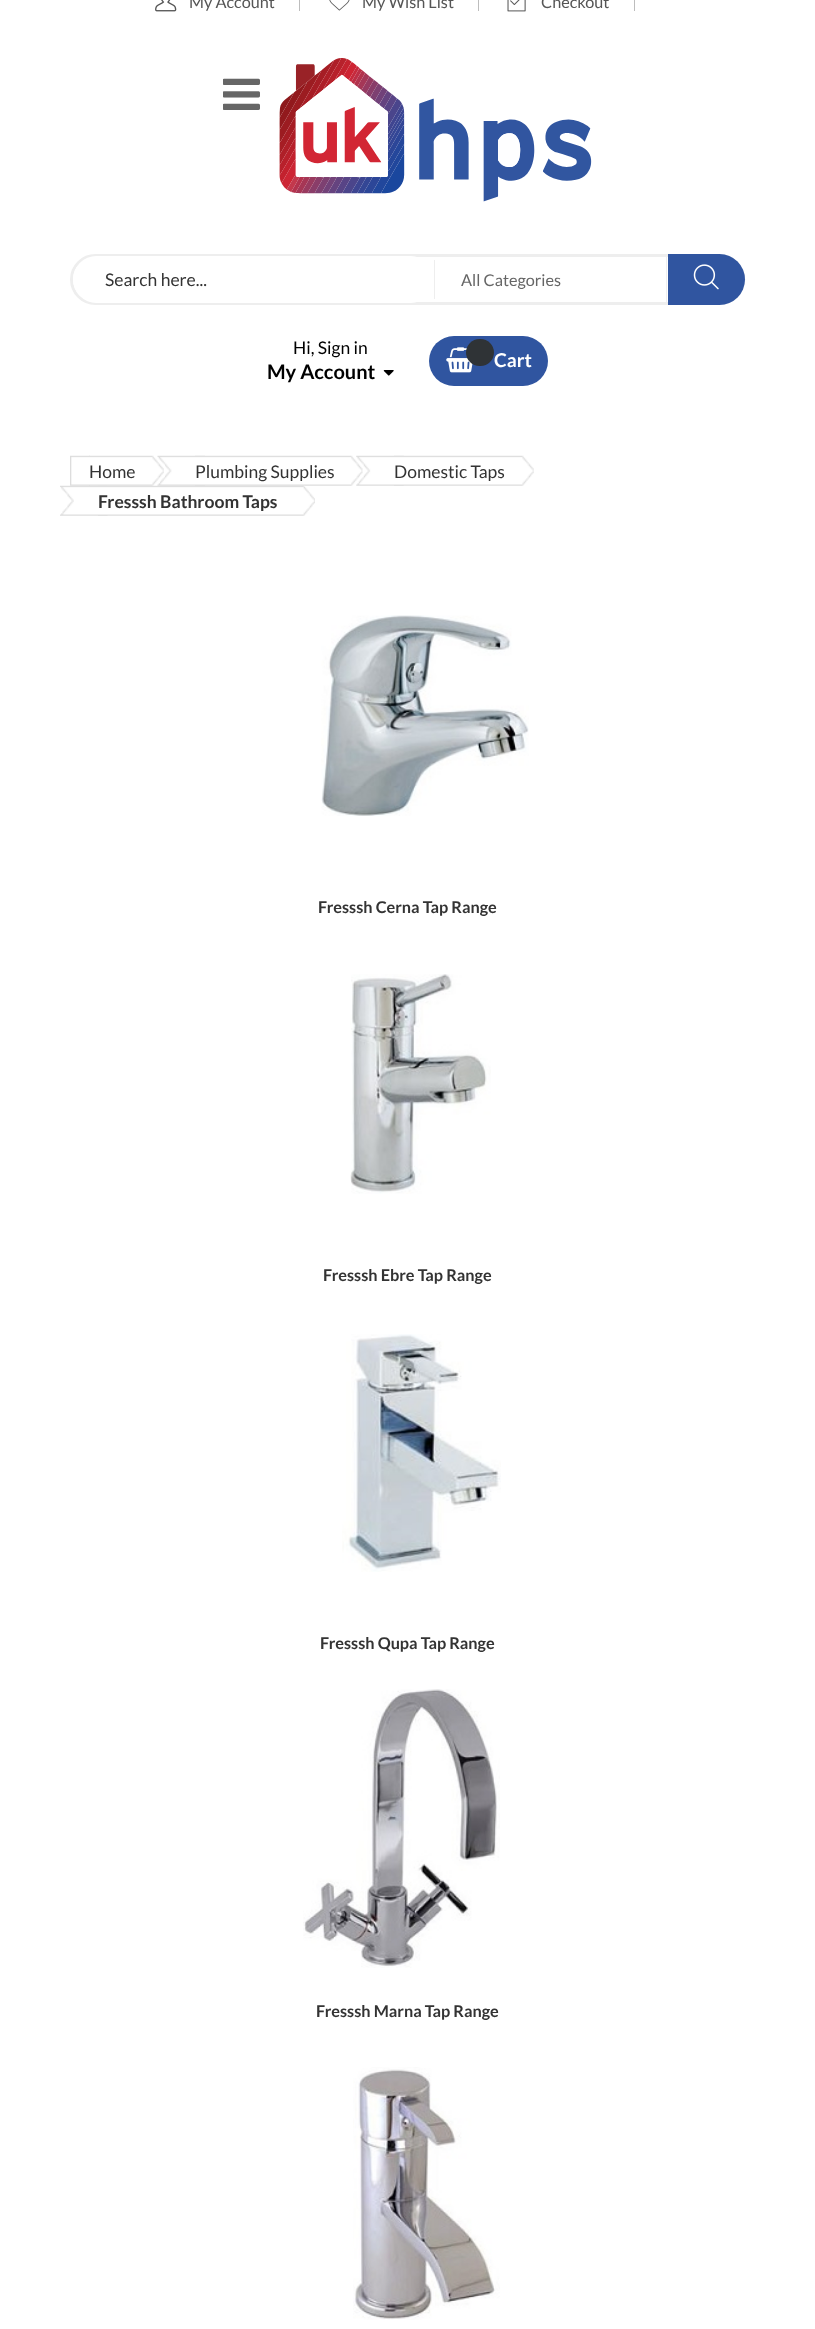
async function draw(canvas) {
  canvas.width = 815
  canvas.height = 2329
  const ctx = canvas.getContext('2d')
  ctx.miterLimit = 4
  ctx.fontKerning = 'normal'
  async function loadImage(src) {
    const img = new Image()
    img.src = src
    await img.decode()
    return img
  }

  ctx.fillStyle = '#fff'
  ctx.fillRect(0, 0, 815, 2329)
  ctx.drawImage(await loadImage('image0.png'), 155, 0, 22, 12)
  ctx.font = '16.25px Lato'
  ctx.fillStyle = '#555'
  ctx.fillText('My Account', 189, 8)
  ctx.fillStyle = '#bdbdbd'
  ctx.fillRect(299, 0, 1, 11)
  ctx.drawImage(await loadImage('image1.png'), 329, 0, 21, 11)
  ctx.fillStyle = '#555'
  ctx.fillText('My Wish List', 362, 8)
  ctx.fillStyle = '#bdbdbd'
  ctx.fillRect(478, 0, 1, 11)
  ctx.drawImage(await loadImage('image2.png'), 507, 0, 19, 12)
  ctx.fillStyle = '#555'
  ctx.fillText('Checkout', 541, 8)
  ctx.fillStyle = '#bdbdbd'
  ctx.fillRect(634, 0, 1, 11)
  ctx.drawImage(await loadImage('image3.png'), 223, 78, 37, 32)
  ctx.drawImage(await loadImage('image4.png'), 279, 58, 313, 144)
  ctx.beginPath()
  ctx.roundRect(71.5, 255.5, 672, 48, 24)
  ctx.strokeStyle = '#eee'
  ctx.lineWidth = 3
  ctx.stroke()
  ctx.fillStyle = '#fff'
  ctx.beginPath()
  ctx.roundRect(73, 256, 361, 47, 23.5)
  ctx.fill()
  ctx.font = '17.5px Lato'
  ctx.fillStyle = '#333'
  ctx.fillText('Search here...', 105, 286)
  ctx.fillStyle = '#eee'
  ctx.fillRect(434, 260, 1, 39)
  ctx.font = '16.25px Lato'
  ctx.fillStyle = '#666'
  ctx.fillText('All Categories', 461, 286)
  ctx.fillStyle = '#3055a0'
  ctx.beginPath()
  ctx.roundRect(668, 254, 77, 51, [0, 25.5, 25.5, 0])
  ctx.fill()
  ctx.fillStyle = '#eee'
  ctx.fillRect(666, 254, 1, 51)
  ctx.drawImage(await loadImage('image5.png'), 693, 264, 26, 26)
  ctx.font = '17.5px Lato'
  ctx.fillStyle = '#000'
  ctx.fillText('Hi, Sign in', 293, 354)
  ctx.font = 'bold 20px Lato'
  ctx.fillText('My Account', 267, 379)
  ctx.drawImage(await loadImage('image6.png'), 383, 370, 11, 6)
  ctx.fillStyle = '#3055a0'
  ctx.beginPath()
  ctx.roundRect(429, 336, 119, 50, 25)
  ctx.fill()
  ctx.drawImage(await loadImage('image7.png'), 446, 347, 27, 26)
  ctx.fillStyle = '#2f3336'
  ctx.beginPath()
  ctx.roundRect(466, 339, 28, 27, 13.5)
  ctx.fill()
  ctx.font = 'bold 19px Lato'
  ctx.fillStyle = '#fff'
  ctx.fillText('Cart', 494, 367)
  ctx.drawImage(await loadImage('image8.png'), 70, 455, 20, 31)
  ctx.drawImage(await loadImage('image9.png'), 89, 455, 75, 31)
  ctx.font = '17.5px Lato'
  ctx.fillStyle = '#333'
  ctx.fillText('Home', 89, 478)
  ctx.drawImage(await loadImage('image10.png'), 157, 455, 48, 31)
  ctx.drawImage(await loadImage('image11.png'), 195, 455, 168, 31)
  ctx.fillText('Plumbing Supplies', 195, 478)
  ctx.drawImage(await loadImage('image12.png'), 356, 455, 48, 31)
  ctx.drawImage(await loadImage('image13.png'), 394, 455, 140, 31)
  ctx.fillText('Domestic Taps', 394, 478)
  ctx.drawImage(await loadImage('image14.png'), 60, 485, 48, 31)
  ctx.drawImage(await loadImage('image15.png'), 98, 485, 217, 31)
  ctx.font = 'bold 17.5px Lato'
  ctx.fillText('Fresssh Bathroom Taps', 98, 508)
  ctx.drawImage(await loadImage('image16.png'), 321, 615, 208, 201)
  ctx.font = 'bold 16.25px Lato'
  ctx.fillText('Fresssh Cerna Tap Range', 318, 913)
  ctx.drawImage(await loadImage('image17.png'), 350, 974, 141, 220)
  ctx.fillText('Fresssh Ebre Tap Range', 323, 1281)
  ctx.drawImage(await loadImage('image18.png'), 342, 1334, 159, 238)
  ctx.fillText('Fresssh Qupa Tap Range', 320, 1649)
  ctx.drawImage(await loadImage('image19.png'), 303, 1689, 197, 279)
  ctx.fillText('Fresssh Marna Tap Range', 316, 2017)
  ctx.drawImage(await loadImage('image20.png'), 353, 2067, 147, 253)
}

draw(document.querySelector('canvas'))
